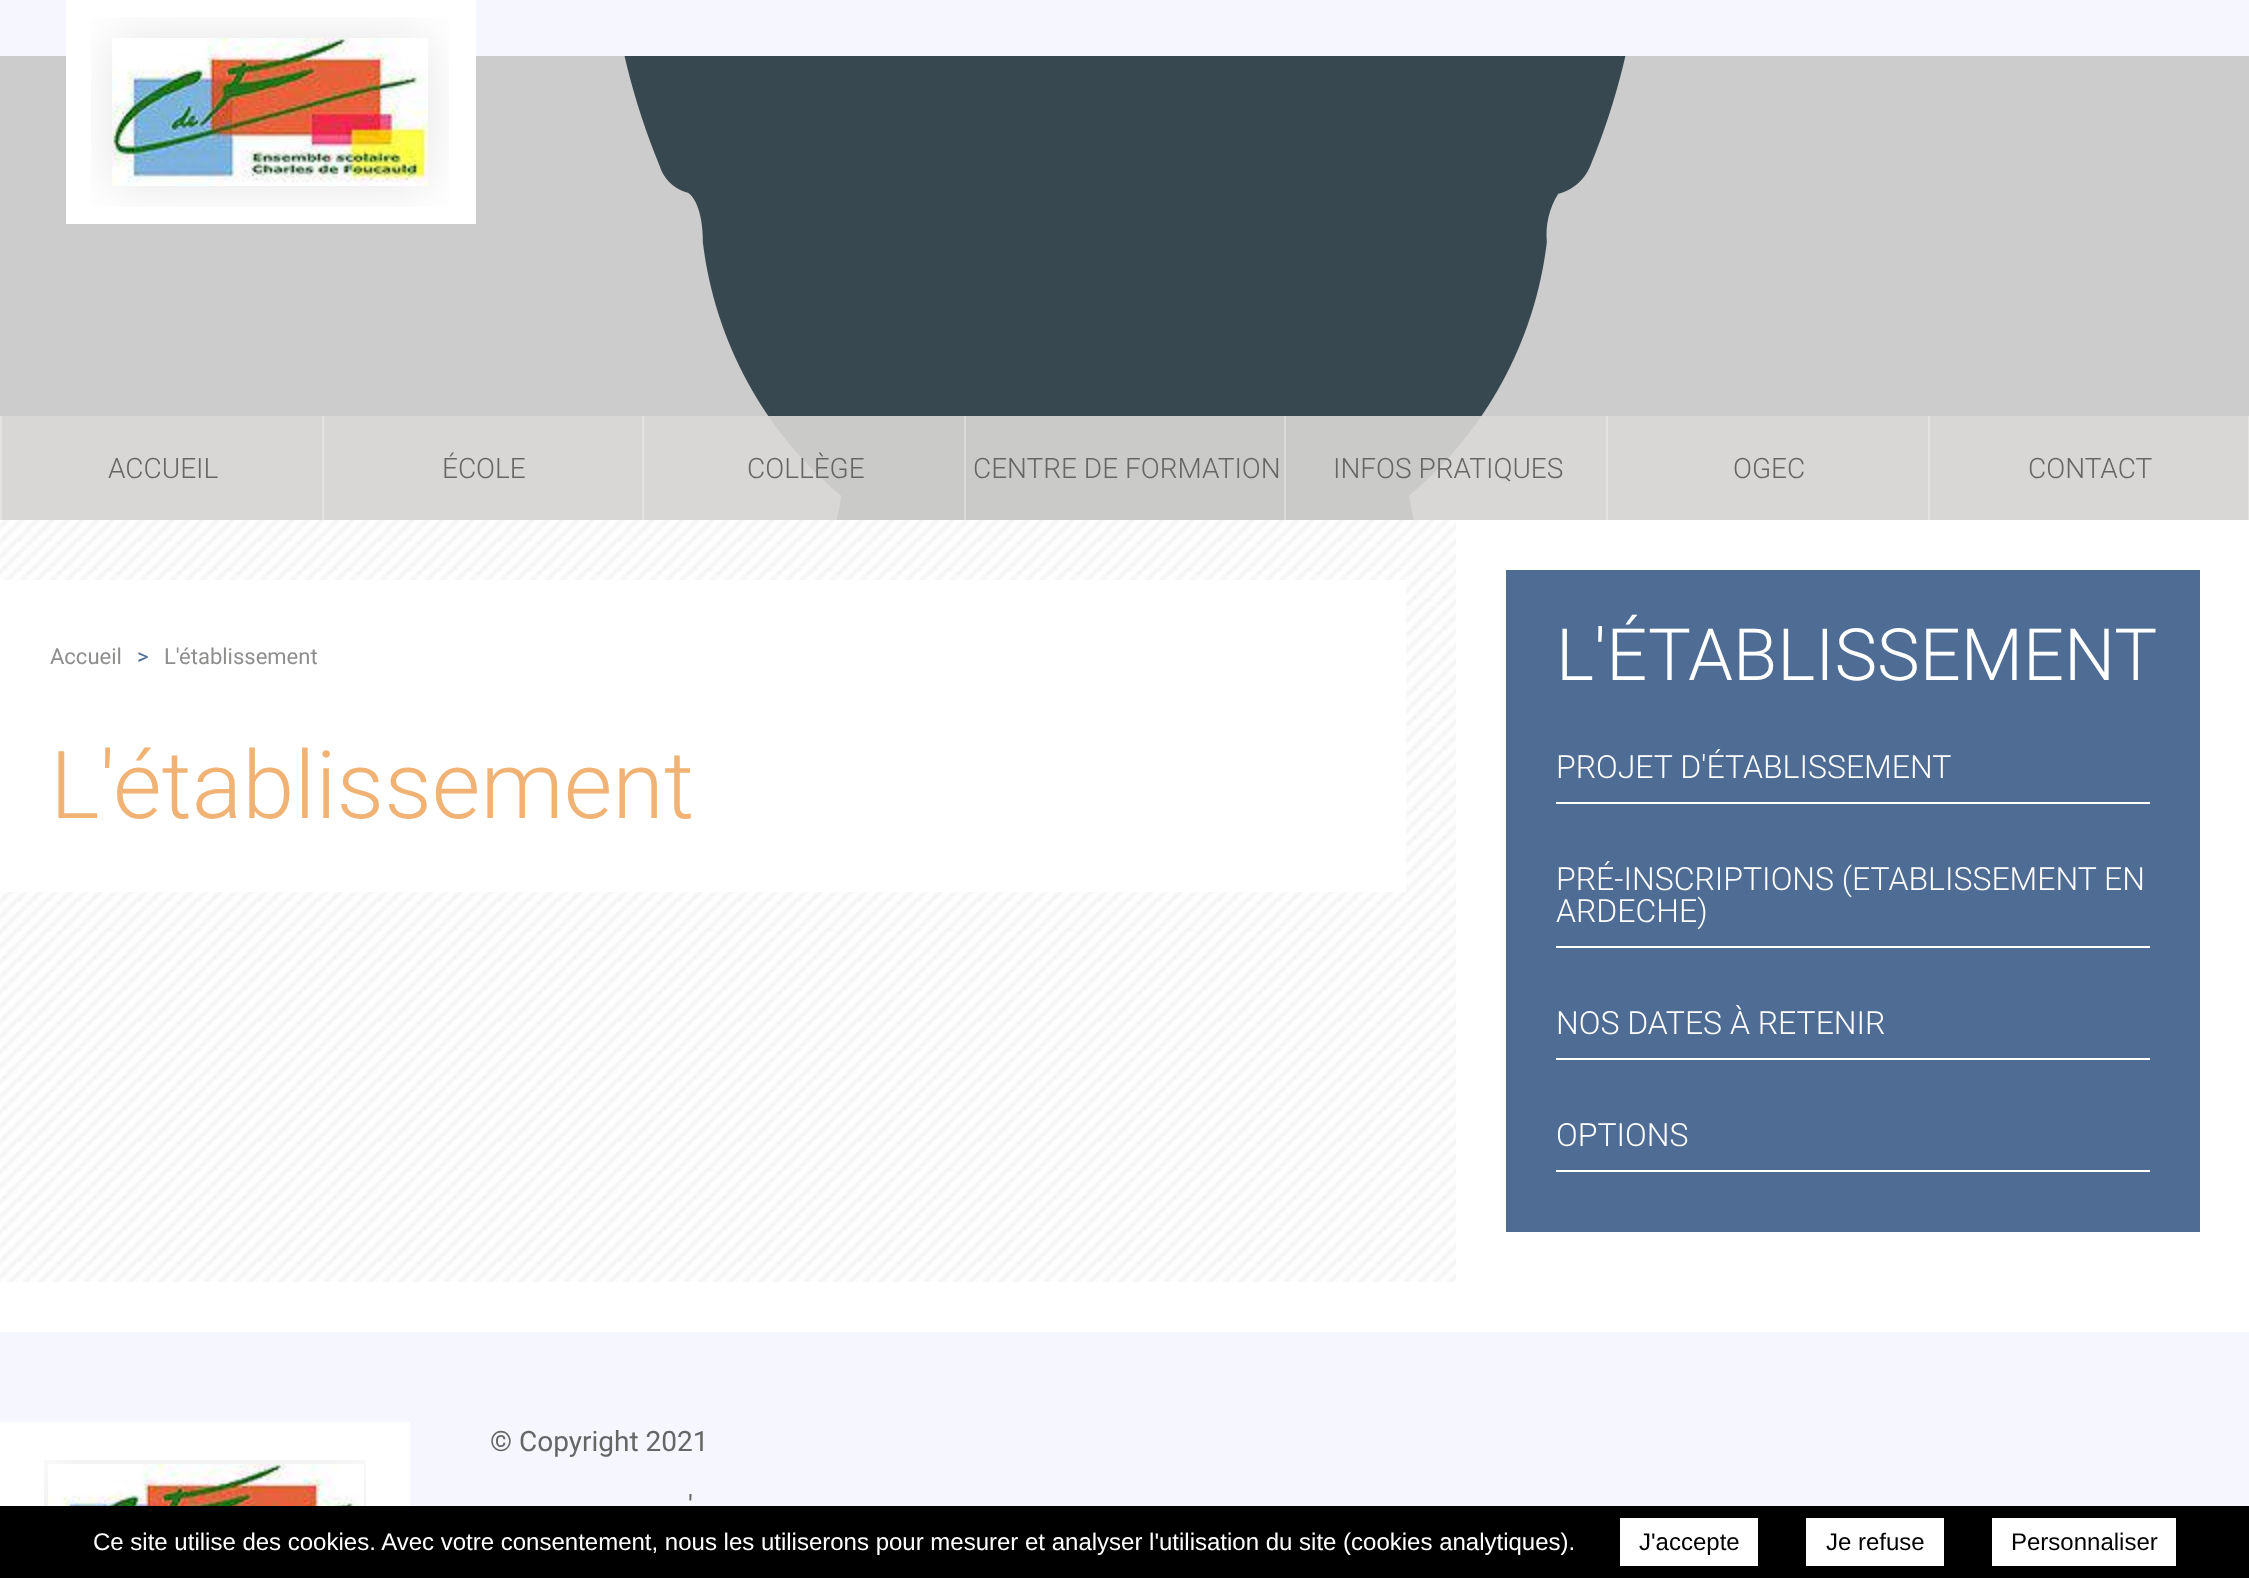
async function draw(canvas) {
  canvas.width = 2249
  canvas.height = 1578
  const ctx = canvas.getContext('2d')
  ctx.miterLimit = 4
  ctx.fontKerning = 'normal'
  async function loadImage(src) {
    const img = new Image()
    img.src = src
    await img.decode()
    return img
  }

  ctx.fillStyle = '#fff'
  ctx.fillRect(0, 0, 2249, 1578)
  ctx.fillStyle = '#ccc'
  ctx.fillRect(0, 56, 2249, 464)
  ctx.fillStyle = '#f5f6ff'
  ctx.fillRect(0, 0, 2249, 56)
  ctx.fillStyle = '#fff'
  ctx.fillRect(66, 0, 410, 224)
  ctx.drawImage(await loadImage('image0.png'), 91, 17, 358, 190)
  ctx.drawImage(await loadImage('image1.png'), 624, 56, 1002, 464)
  ctx.fillStyle = '#dad8d6e6'
  ctx.fillRect(2, 416, 2246, 104)
  ctx.fillStyle = '#e4e3e2'
  ctx.fillRect(0, 416, 2, 104)
  ctx.font = '300 28px Roboto'
  ctx.fillStyle = '#666'
  ctx.fillText('ACCUEIL', 108, 478)
  ctx.fillStyle = '#e4e3e2'
  ctx.fillRect(322, 416, 2, 104)
  ctx.fillStyle = '#666'
  ctx.fillText('ÉCOLE', 442, 478)
  ctx.fillStyle = '#e4e3e2'
  ctx.fillRect(642, 416, 2, 104)
  ctx.fillStyle = '#666'
  ctx.fillText('COLLÈGE', 747, 478)
  ctx.fillStyle = '#dadad9'
  ctx.fillRect(964, 416, 2, 104)
  ctx.fillStyle = '#666'
  ctx.fillText('CENTRE DE FORMATION', 973, 478)
  ctx.fillStyle = '#dadad9'
  ctx.fillRect(1284, 416, 2, 104)
  ctx.fillStyle = '#666'
  ctx.fillText('INFOS PRATIQUES', 1333, 478)
  ctx.fillStyle = '#e4e3e2'
  ctx.fillRect(1606, 416, 2, 104)
  ctx.fillStyle = '#666'
  ctx.fillText('OGEC', 1733, 478)
  ctx.fillStyle = '#e4e3e2'
  ctx.fillRect(2248, 416, 1, 104)
  ctx.fillRect(1928, 416, 2, 104)
  ctx.fillStyle = '#666'
  ctx.fillText('CONTACT', 2028, 478)
  ctx.drawImage(await loadImage('image2.png'), 0, 520, 1456, 762)
  ctx.fillStyle = '#fff'
  ctx.fillRect(0, 580, 1406, 312)
  ctx.font = '22px Roboto'
  ctx.fillStyle = '#8e8e8d'
  ctx.fillText('Accueil', 50, 664)
  ctx.fillStyle = '#4e6c94'
  ctx.fillText('>', 137, 664)
  ctx.fillStyle = '#8e8e8d'
  ctx.fillText('L\'établissement', 164, 664)
  ctx.font = '300 94px Roboto'
  ctx.fillStyle = '#f1b375'
  ctx.fillText('L\'établissement', 50, 818)
  ctx.fillStyle = '#4e6c94'
  ctx.fillRect(1506, 570, 694, 662)
  ctx.font = '300 72px Roboto'
  ctx.fillStyle = '#fff'
  ctx.fillText('L\'ÉTABLISSEMENT', 1556, 680)
  ctx.font = '300 32px Roboto'
  ctx.fillText('PROJET D\'ÉTABLISSEMENT', 1556, 778)
  ctx.fillRect(1556, 802, 594, 2)
  ctx.fillText('PRÉ-INSCRIPTIONS (ETABLISSEMENT EN', 1556, 890)
  ctx.fillText('ARDECHE)', 1556, 922)
  ctx.fillRect(1556, 946, 594, 2)
  ctx.fillText('NOS DATES À RETENIR', 1556, 1034)
  ctx.fillRect(1556, 1058, 594, 2)
  ctx.fillText('OPTIONS', 1556, 1146)
  ctx.fillRect(1556, 1170, 594, 2)
  ctx.fillStyle = '#f5f6ff'
  ctx.fillRect(0, 1332, 2249, 174)
  ctx.fillStyle = '#fff'
  ctx.fillRect(0, 1422, 410, 84)
  ctx.drawImage(await loadImage('image3.png'), 44, 1460, 322, 46)
  ctx.font = '28px Roboto'
  ctx.fillStyle = '#666'
  ctx.fillText('© Copyright 2021', 490, 1451)
  ctx.fillText('\'', 688, 1515)
  ctx.fillStyle = '#000'
  ctx.fillRect(0, 1506, 2249, 72)
  ctx.font = '24px Liberation Sans'
  ctx.fillStyle = '#fff'
  ctx.fillText('Ce site utilise des cookies. Avec votre consentement, nous les utiliserons pour mesurer et analyser l\'utilisation du site (cookies analytiques).', 93, 1550)
  ctx.fillRect(1620, 1518, 138, 48)
  ctx.fillStyle = '#000'
  ctx.fillText('J\'accepte', 1639, 1550)
  ctx.fillStyle = '#fff'
  ctx.fillRect(1806, 1518, 138, 48)
  ctx.fillStyle = '#000'
  ctx.fillText('Je refuse', 1826, 1550)
  ctx.fillStyle = '#fff'
  ctx.fillRect(1992, 1518, 184, 48)
  ctx.fillStyle = '#000'
  ctx.fillText('Personnaliser', 2011, 1550)
}

draw(document.querySelector('canvas'))
